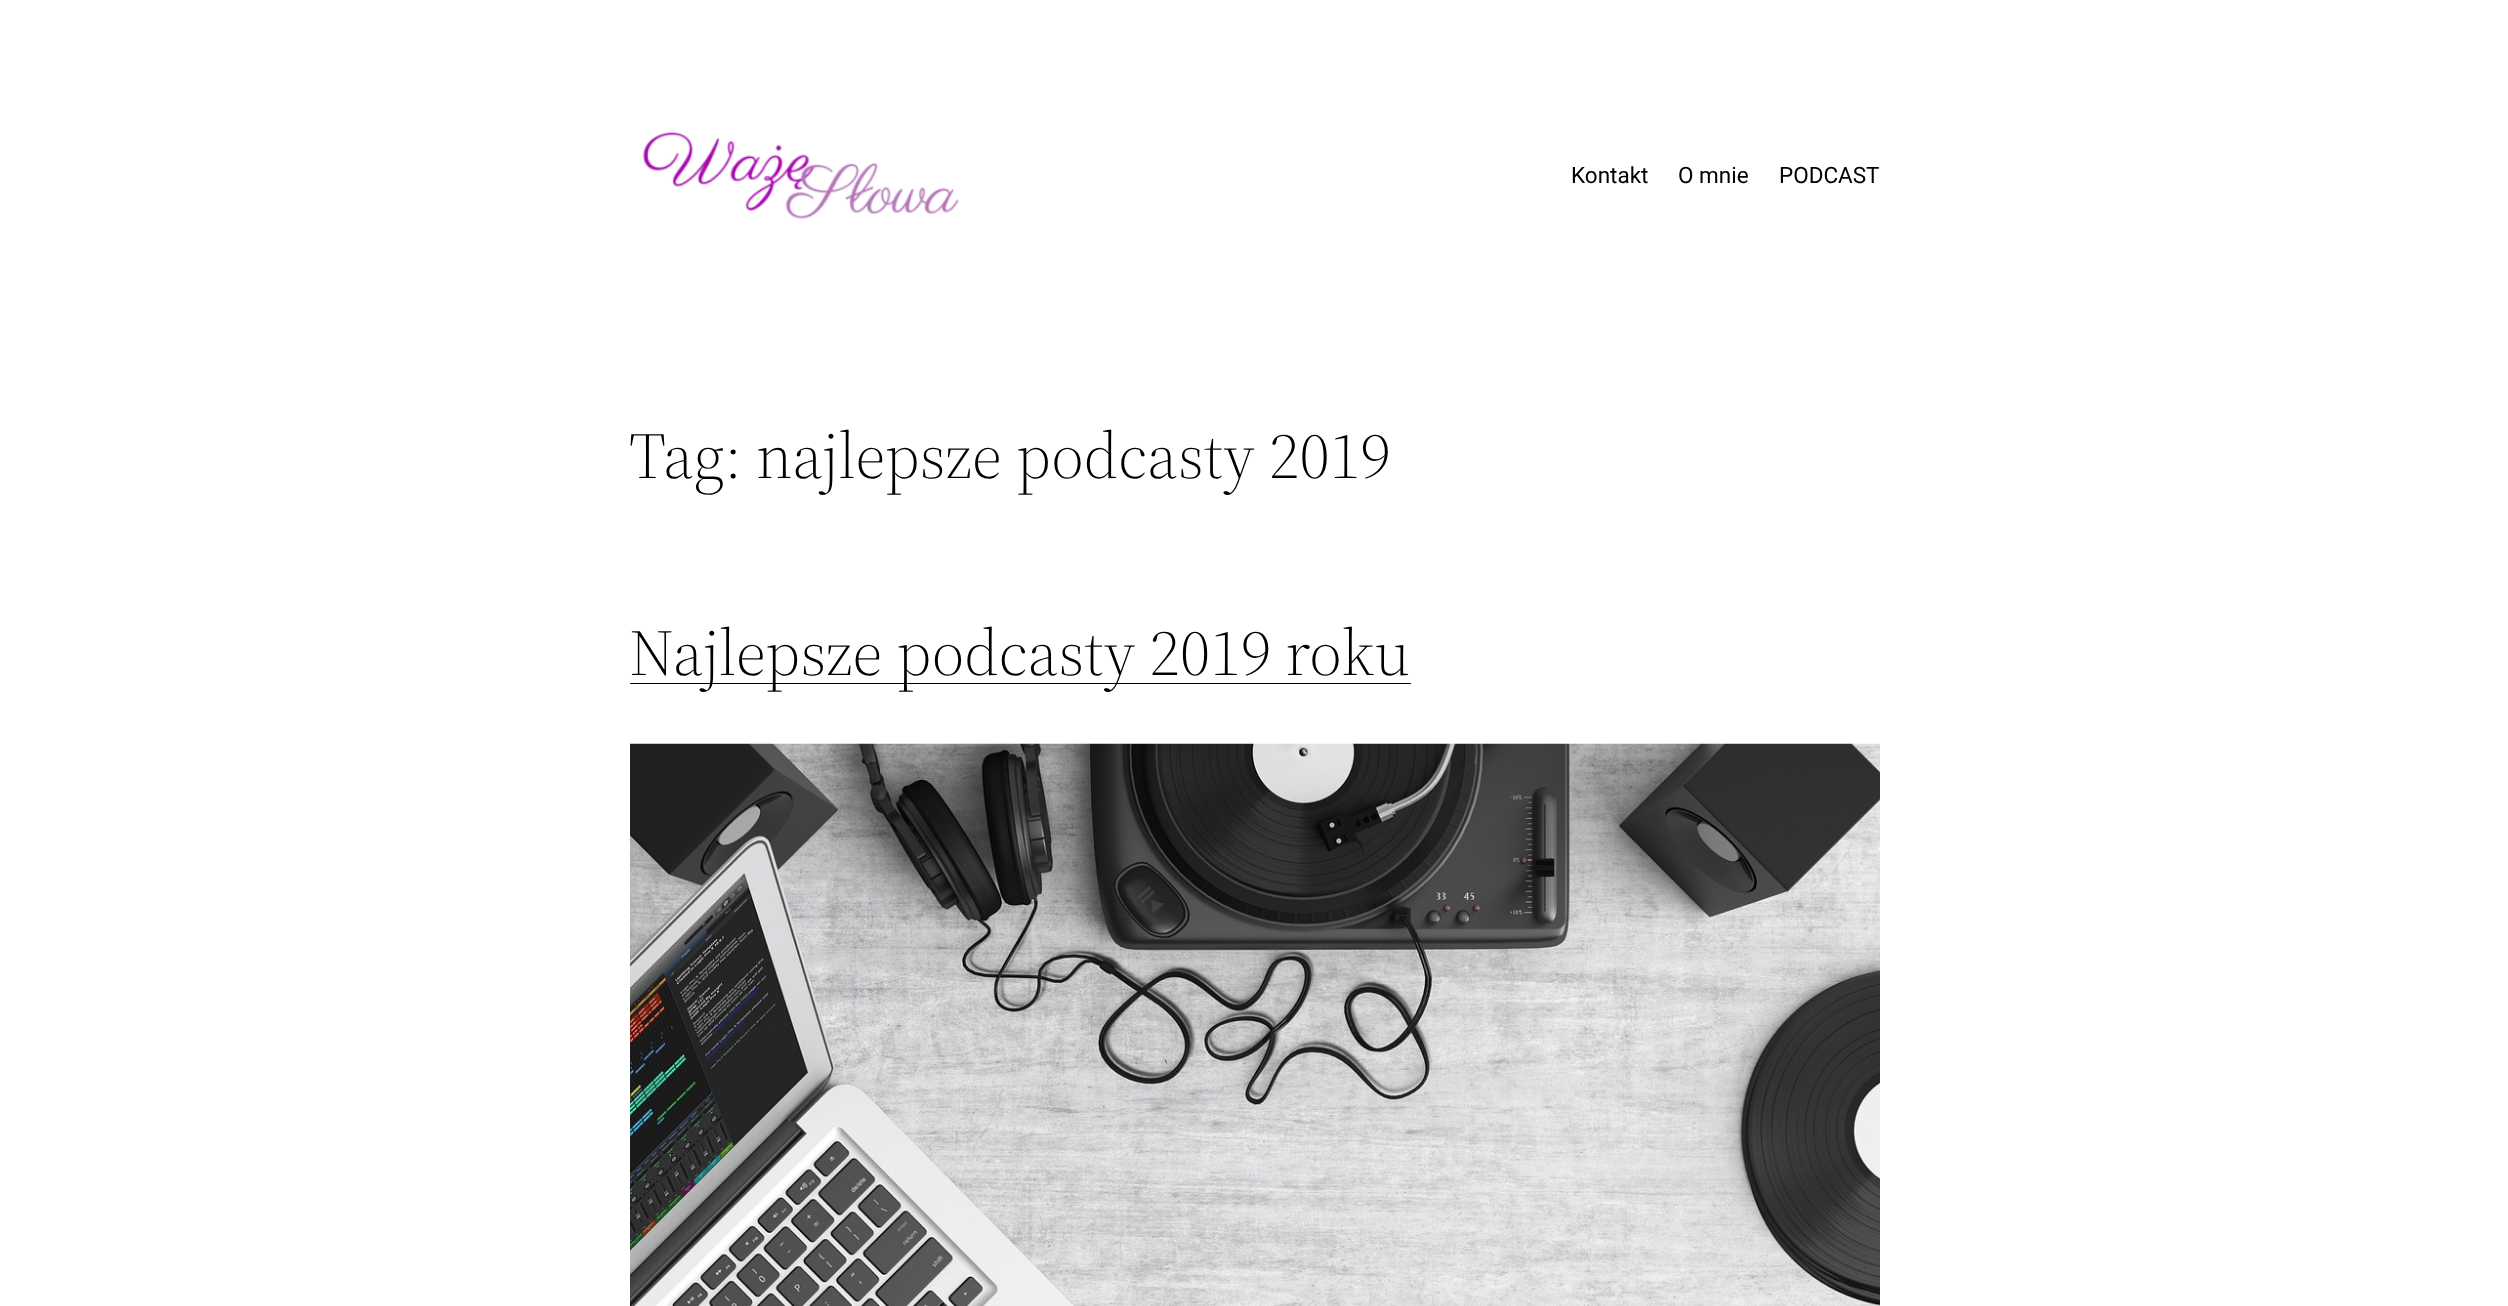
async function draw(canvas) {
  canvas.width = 2508
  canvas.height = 1306
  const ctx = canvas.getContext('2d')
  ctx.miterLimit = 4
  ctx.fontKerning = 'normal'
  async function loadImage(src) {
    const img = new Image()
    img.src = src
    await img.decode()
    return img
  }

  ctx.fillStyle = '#fff'
  ctx.fillRect(0, 0, 2508, 1306)
  ctx.drawImage(await loadImage('image0.png'), 642, 131, 317, 88)
  ctx.font = '22.5px Roboto'
  ctx.fillStyle = '#000'
  ctx.fillText('Kontakt', 1571, 183)
  ctx.fillText('O mnie', 1678, 183)
  ctx.fillText('PODCAST', 1779, 183)
  ctx.font = '300 65px "Source Serif 4"'
  ctx.fillText('Tag: najlepsze podcasty 2019', 629, 478)
  ctx.fillRect(630, 683, 781, 1)
  ctx.fillText('Najlepsze podcasty 2019 roku', 629, 675)
  ctx.drawImage(await loadImage('image1.png'), 630, 743, 1250, 563)
}

draw(document.querySelector('canvas'))
